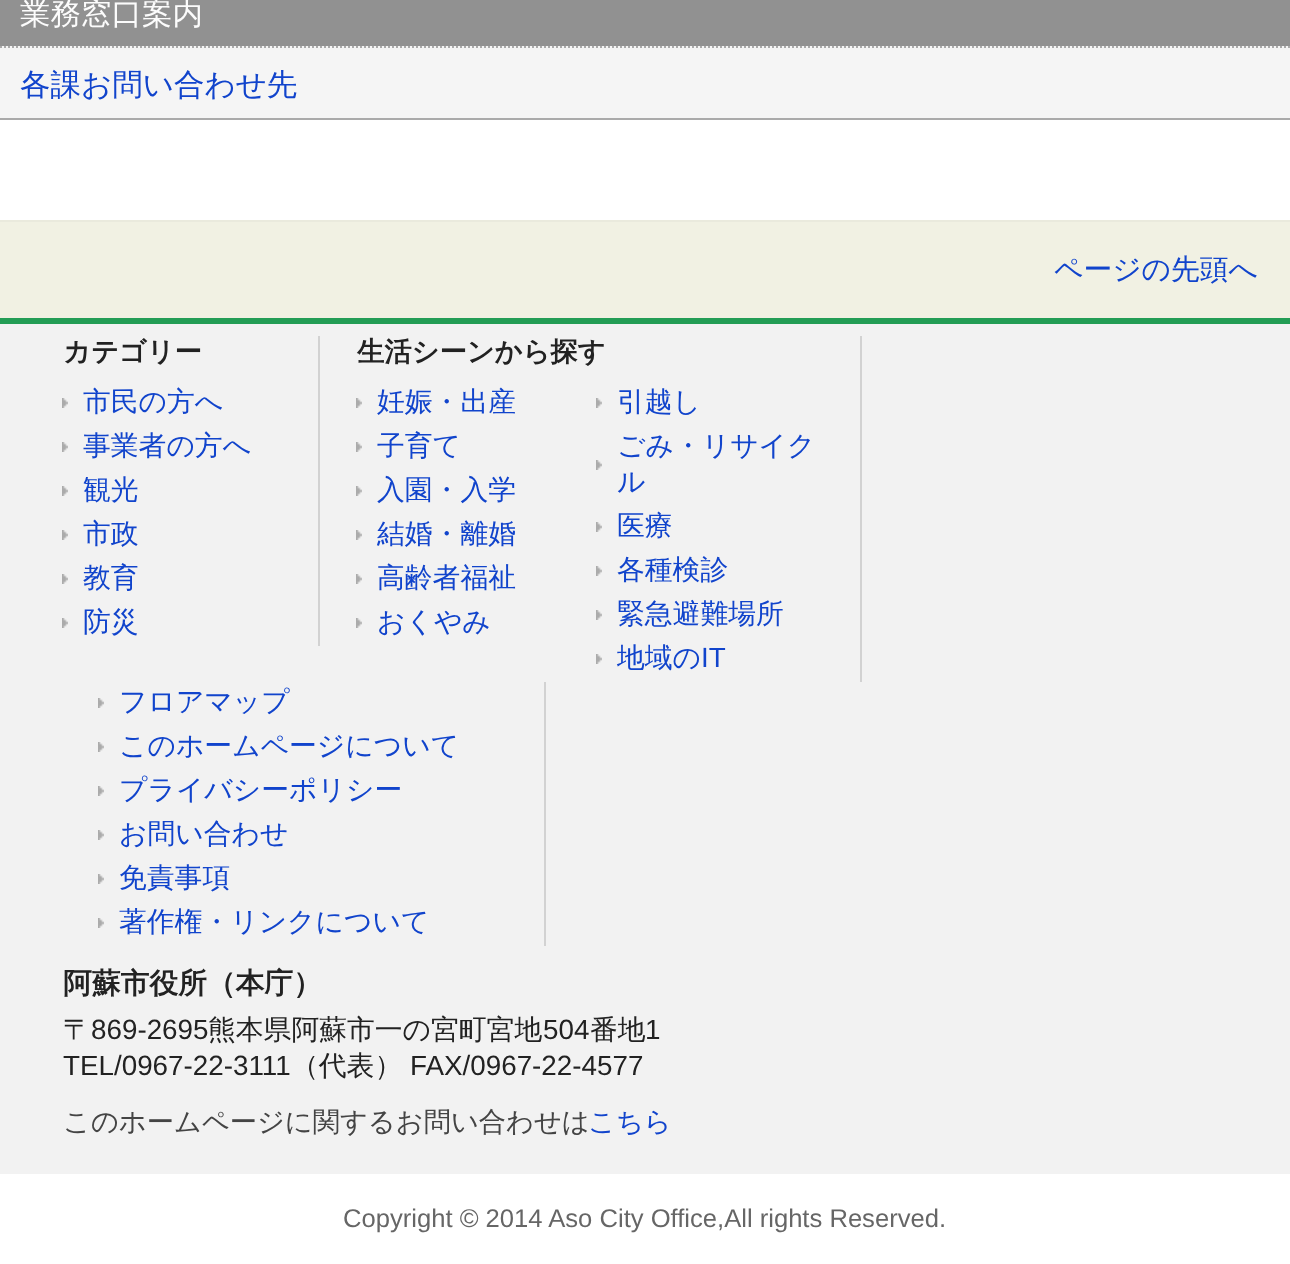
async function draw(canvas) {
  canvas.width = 1290
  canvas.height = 1264
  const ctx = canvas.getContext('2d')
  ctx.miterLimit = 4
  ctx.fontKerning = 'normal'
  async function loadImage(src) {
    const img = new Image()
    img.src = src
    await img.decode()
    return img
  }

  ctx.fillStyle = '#fff'
  ctx.fillRect(0, 0, 1290, 1264)
  ctx.fillStyle = '#f5f5f5'
  ctx.fillRect(0, 46, 1290, 72)
  ctx.fillStyle = '#aaa'
  ctx.fillRect(0, 118, 1290, 2)
  ctx.fillStyle = '#919191'
  ctx.fillRect(0, 0, 1290, 46)
  ctx.font = '500 30.5px WenQuanYi Zen Hei'
  ctx.fillStyle = '#fcfcfc'
  ctx.fillText('業務窓口案内', 20, 24)
  ctx.beginPath()
  ctx.moveTo(0, 47)
  ctx.lineTo(1290, 47)
  ctx.strokeStyle = '#aaa'
  ctx.lineWidth = 2
  ctx.setLineDash([2, 2])
  ctx.stroke()
  ctx.fillStyle = '#14c'
  ctx.fillText('各課お問い合わせ先', 20, 95)
  ctx.fillStyle = '#f1f1e3'
  ctx.fillRect(0, 222, 1290, 96)
  ctx.fillStyle = '#eaeadd'
  ctx.fillRect(0, 220, 1290, 2)
  ctx.font = '500 28.75px WenQuanYi Zen Hei'
  ctx.fillStyle = '#14c'
  ctx.fillText('ページの先頭へ', 1054, 279)
  ctx.fillStyle = '#f2f2f2'
  ctx.fillRect(0, 324, 1290, 850)
  ctx.fillStyle = '#239d55'
  ctx.fillRect(0, 318, 1290, 6)
  ctx.fillStyle = '#d2d2d2'
  ctx.fillRect(318, 336, 2, 310)
  ctx.font = 'bold 27.25px WenQuanYi Zen Hei'
  ctx.fillStyle = '#222'
  ctx.fillText('カテゴリー', 63, 361)
  ctx.drawImage(await loadImage('image0.png'), 62, 398, 6, 10)
  ctx.font = '500 27.8px WenQuanYi Zen Hei'
  ctx.fillStyle = '#14c'
  ctx.fillText('市民の方へ', 83, 411)
  ctx.drawImage(await loadImage('image0.png'), 62, 442, 6, 10)
  ctx.fillText('事業者の方へ', 83, 455)
  ctx.drawImage(await loadImage('image0.png'), 62, 486, 6, 10)
  ctx.fillText('観光', 83, 499)
  ctx.drawImage(await loadImage('image0.png'), 62, 530, 6, 10)
  ctx.fillText('市政', 83, 543)
  ctx.drawImage(await loadImage('image0.png'), 62, 574, 6, 10)
  ctx.fillText('教育', 83, 587)
  ctx.drawImage(await loadImage('image0.png'), 62, 618, 6, 10)
  ctx.fillText('防災', 83, 631)
  ctx.fillStyle = '#d2d2d2'
  ctx.fillRect(860, 336, 2, 346)
  ctx.font = 'bold 27.25px WenQuanYi Zen Hei'
  ctx.fillStyle = '#222'
  ctx.fillText('生活シーンから探す', 357, 361)
  ctx.drawImage(await loadImage('image0.png'), 356, 398, 6, 10)
  ctx.font = '500 27.8px WenQuanYi Zen Hei'
  ctx.fillStyle = '#14c'
  ctx.fillText('妊娠・出産', 377, 411)
  ctx.drawImage(await loadImage('image0.png'), 356, 442, 6, 10)
  ctx.fillText('子育て', 377, 455)
  ctx.drawImage(await loadImage('image0.png'), 356, 486, 6, 10)
  ctx.fillText('入園・入学', 377, 499)
  ctx.drawImage(await loadImage('image0.png'), 356, 530, 6, 10)
  ctx.fillText('結婚・離婚', 377, 543)
  ctx.drawImage(await loadImage('image0.png'), 356, 574, 6, 10)
  ctx.fillText('高齢者福祉', 377, 587)
  ctx.drawImage(await loadImage('image0.png'), 356, 618, 6, 10)
  ctx.fillText('おくやみ', 377, 631)
  ctx.drawImage(await loadImage('image0.png'), 596, 398, 6, 10)
  ctx.fillText('引越し', 617, 411)
  ctx.drawImage(await loadImage('image0.png'), 596, 460, 6, 10)
  ctx.fillText('ごみ・リサイク', 617, 455)
  ctx.fillText('ル', 617, 491)
  ctx.drawImage(await loadImage('image0.png'), 596, 522, 6, 10)
  ctx.fillText('医療', 617, 535)
  ctx.drawImage(await loadImage('image0.png'), 596, 566, 6, 10)
  ctx.fillText('各種検診', 617, 579)
  ctx.drawImage(await loadImage('image0.png'), 596, 610, 6, 10)
  ctx.fillText('緊急避難場所', 617, 623)
  ctx.drawImage(await loadImage('image0.png'), 596, 654, 6, 10)
  ctx.fillText('地域の', 617, 667)
  ctx.font = '27.8px Liberation Sans'
  ctx.fillText('IT', 701, 667)
  ctx.fillStyle = '#d2d2d2'
  ctx.fillRect(544, 682, 2, 264)
  ctx.drawImage(await loadImage('image0.png'), 98, 698, 6, 10)
  ctx.font = '500 27.8px WenQuanYi Zen Hei'
  ctx.fillStyle = '#14c'
  ctx.fillText('フロアマップ', 119, 711)
  ctx.drawImage(await loadImage('image0.png'), 98, 742, 6, 10)
  ctx.fillText('このホームページについて', 119, 755)
  ctx.drawImage(await loadImage('image0.png'), 98, 786, 6, 10)
  ctx.fillText('プライバシーポリシー', 119, 799)
  ctx.drawImage(await loadImage('image0.png'), 98, 830, 6, 10)
  ctx.fillText('お問い合わせ', 119, 843)
  ctx.drawImage(await loadImage('image0.png'), 98, 874, 6, 10)
  ctx.fillText('免責事項', 119, 887)
  ctx.drawImage(await loadImage('image0.png'), 98, 918, 6, 10)
  ctx.fillText('著作権・リンクについて', 119, 931)
  ctx.font = 'bold 28.75px WenQuanYi Zen Hei'
  ctx.fillStyle = '#222'
  ctx.fillText('阿蘇市役所（本庁）', 63, 993)
  ctx.font = '500 27.8px WenQuanYi Zen Hei'
  ctx.fillText('〒', 63, 1039)
  ctx.font = '27.8px Liberation Sans'
  ctx.fillText('869-2695', 91, 1039)
  ctx.font = '500 27.8px WenQuanYi Zen Hei'
  ctx.fillText('熊本県阿蘇市一の宮町宮地', 208, 1039)
  ctx.font = '27.8px Liberation Sans'
  ctx.fillText('504', 543, 1039)
  ctx.font = '500 27.8px WenQuanYi Zen Hei'
  ctx.fillText('番地', 590, 1039)
  ctx.font = '27.8px Liberation Sans'
  ctx.fillText('1', 645, 1039)
  ctx.fillText('TEL/0967-22-3111', 63, 1075)
  ctx.font = '500 27.8px WenQuanYi Zen Hei'
  ctx.fillText('（代表）', 291, 1075)
  ctx.font = '27.8px Liberation Sans'
  ctx.fillText('FAX/0967-22-4577', 410, 1075)
  ctx.font = '500 27.25px WenQuanYi Zen Hei'
  ctx.fillStyle = '#444'
  ctx.fillText('このホームページに関するお問い合わせは', 63, 1131)
  ctx.fillStyle = '#14c'
  ctx.fillText('こちら', 588, 1131)
  ctx.font = '25.6px Liberation Sans'
  ctx.fillStyle = '#666'
  ctx.fillText('Copyright © 2014 Aso City Office,All rights Reserved.', 343, 1227)
}

draw(document.querySelector('canvas'))
